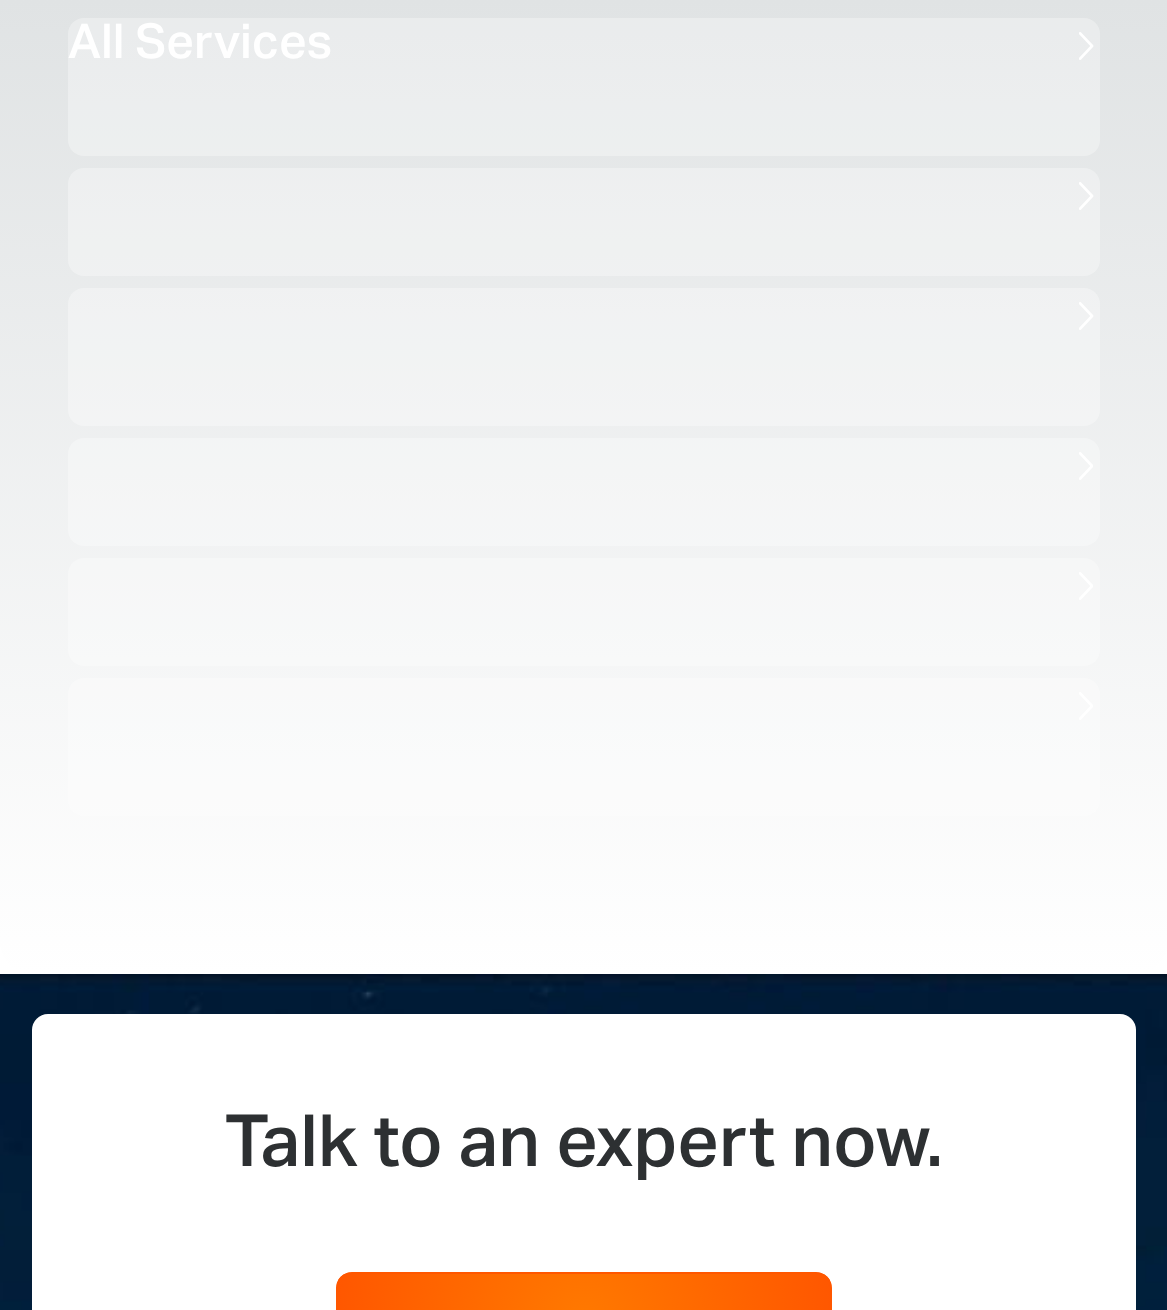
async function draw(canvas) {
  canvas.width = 1167
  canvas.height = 1310
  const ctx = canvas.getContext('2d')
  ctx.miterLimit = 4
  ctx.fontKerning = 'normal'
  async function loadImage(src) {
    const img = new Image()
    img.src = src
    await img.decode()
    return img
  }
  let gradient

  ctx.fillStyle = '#fff'
  ctx.fillRect(0, 0, 1167, 1310)
  gradient = ctx.createLinearGradient(584, 0, 584, 974)
  gradient.addColorStop(0, '#e0e3e4')
  gradient.addColorStop(1, '#fff')
  ctx.fillStyle = gradient
  ctx.beginPath()
  ctx.moveTo(0, 0)
  ctx.lineTo(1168, 0)
  ctx.lineTo(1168, 942)
  ctx.bezierCurveTo(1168, 959.5, 1153.5, 974, 1136, 974)
  ctx.lineTo(32, 974)
  ctx.bezierCurveTo(14.5, 974, 0, 959.5, 0, 942)
  ctx.closePath()
  ctx.fill()
  ctx.fillStyle = '#ffffff52'
  ctx.beginPath()
  ctx.roundRect(68, 18, 1032, 138, 16)
  ctx.fill()
  ctx.font = '500 48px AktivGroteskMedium'
  ctx.fillStyle = '#fff'
  ctx.fillText('All Services', 68, 58)
  ctx.drawImage(await loadImage('image0.png'), 1079, 32, 15, 28)
  ctx.fillStyle = '#ffffff52'
  ctx.beginPath()
  ctx.roundRect(68, 168, 1032, 108, 16)
  ctx.fill()
  ctx.drawImage(await loadImage('image1.png'), 1079, 182, 15, 28)
  ctx.beginPath()
  ctx.roundRect(68, 288, 1032, 138, 16)
  ctx.fill()
  ctx.drawImage(await loadImage('image2.png'), 1079, 302, 15, 28)
  ctx.beginPath()
  ctx.roundRect(68, 438, 1032, 108, 16)
  ctx.fill()
  ctx.drawImage(await loadImage('image3.png'), 1079, 452, 14, 28)
  ctx.beginPath()
  ctx.roundRect(68, 558, 1032, 108, 16)
  ctx.fill()
  ctx.drawImage(await loadImage('image4.png'), 1079, 572, 14, 28)
  ctx.beginPath()
  ctx.roundRect(68, 678, 1032, 138, 16)
  ctx.fill()
  ctx.drawImage(await loadImage('image5.png'), 1079, 692, 14, 28)
  ctx.drawImage(await loadImage('image6.png'), 0, 974, 1167, 336)
  ctx.fillStyle = '#fff'
  ctx.beginPath()
  ctx.roundRect(32, 1014, 1104, 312, 16)
  ctx.fill()
  ctx.font = '500 72px AktivGroteskMedium'
  ctx.fillStyle = '#2d3032'
  ctx.fillText('Talk to an expert now.', 225, 1166)
  ctx.save()
  ctx.beginPath()
  ctx.roundRect(336, 1272, 496, 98, 16)
  ctx.clip()
  gradient = ctx.createRadialGradient(584, 1321, 0, 584, 1321, 250)
  gradient.addColorStop(0, '#ff7900')
  gradient.addColorStop(1, '#ff5700')
  ctx.fillStyle = gradient
  ctx.fillRect(338, 1274, 492, 36)
  ctx.restore()
  ctx.beginPath()
  ctx.roundRect(337, 1273, 494, 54, 15)
  ctx.strokeStyle = '#ff5700'
  ctx.lineWidth = 2
  ctx.stroke()
}

draw(document.querySelector('canvas'))
